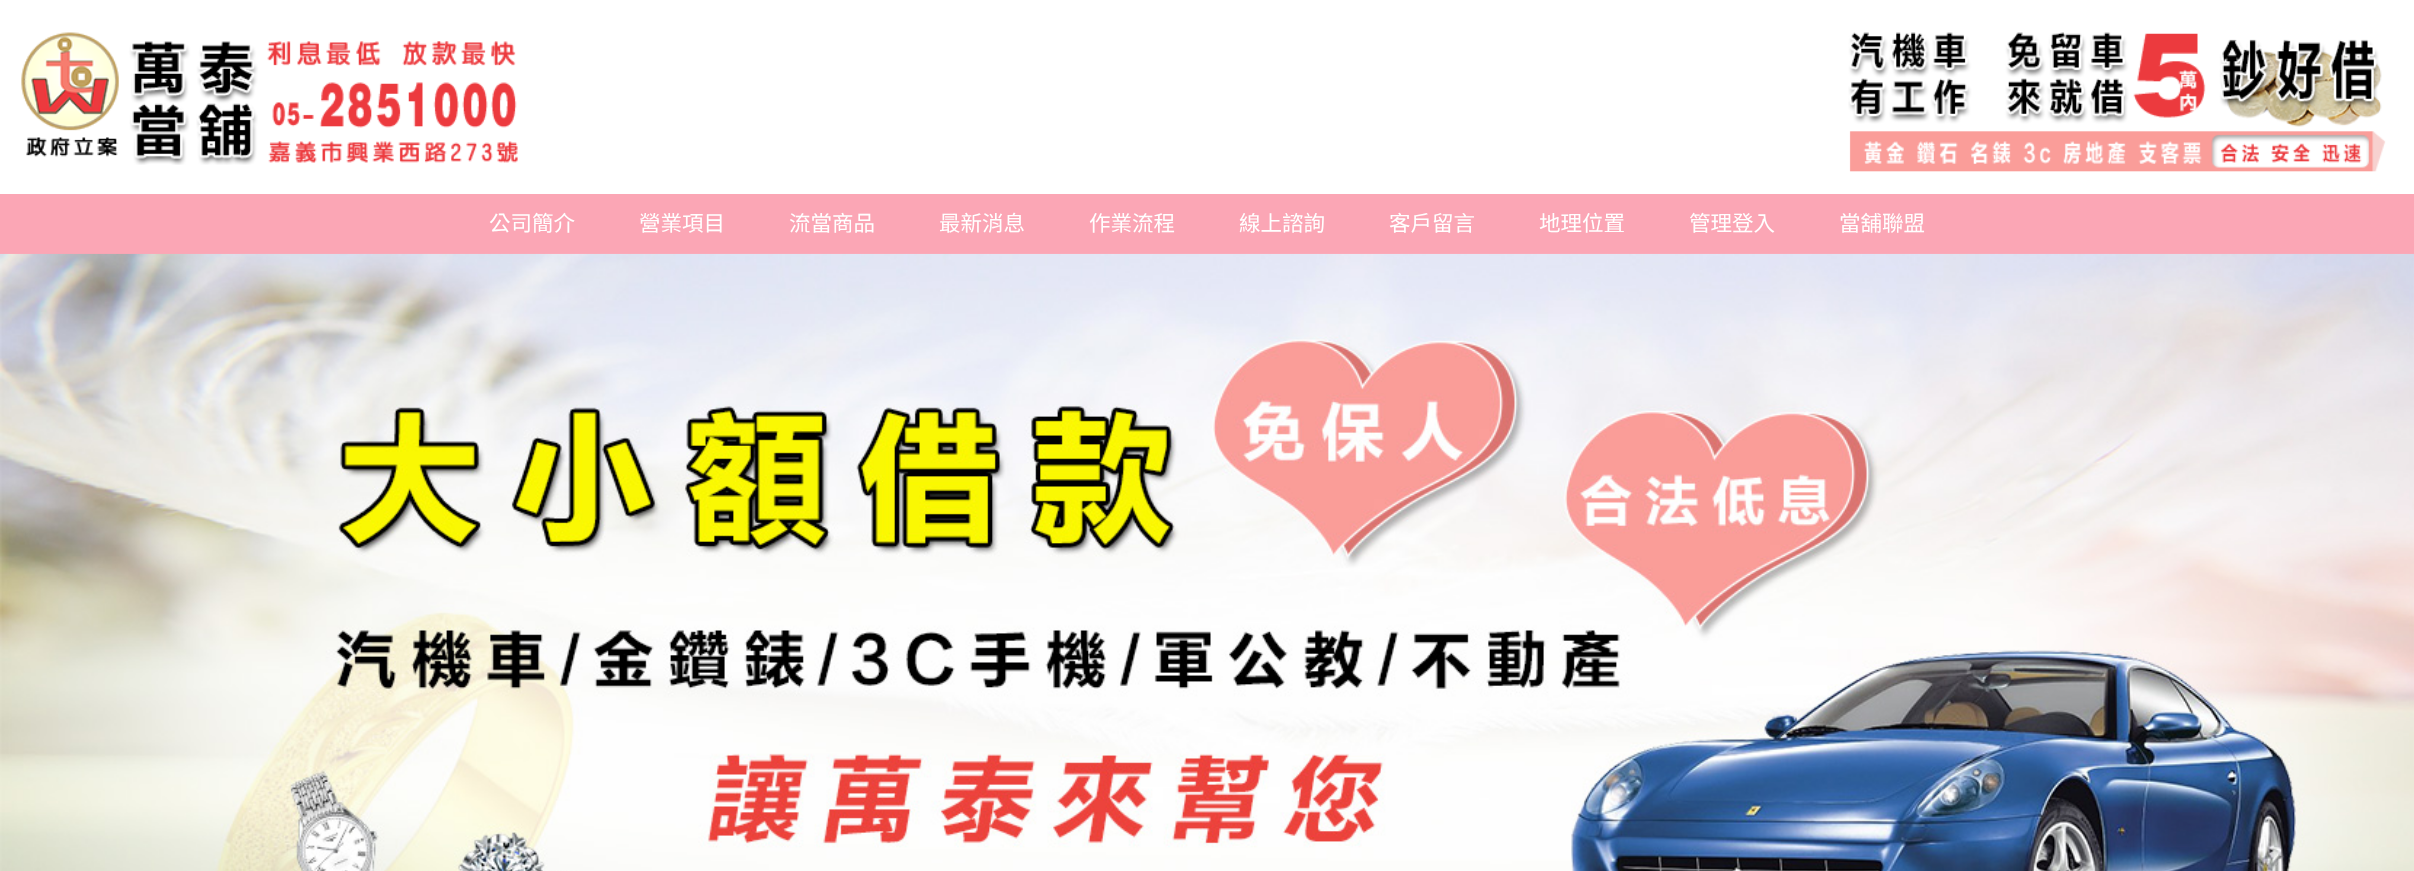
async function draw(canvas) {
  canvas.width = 2414
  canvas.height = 871
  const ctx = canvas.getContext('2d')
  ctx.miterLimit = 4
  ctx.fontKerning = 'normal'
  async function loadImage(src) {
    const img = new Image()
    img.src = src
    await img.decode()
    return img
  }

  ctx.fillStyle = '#fff'
  ctx.fillRect(0, 0, 2414, 871)
  ctx.drawImage(await loadImage('image0.png'), 21, 32, 497, 133)
  ctx.drawImage(await loadImage('image1.png'), 1848, 32, 538, 140)
  ctx.fillStyle = '#fba6b5'
  ctx.fillRect(0, 194, 2414, 60)
  ctx.font = '21.5px Noto Sans CJK TC'
  ctx.fillStyle = '#fff'
  ctx.fillText('公司簡介', 489, 231)
  ctx.fillText('營業項目', 639, 231)
  ctx.fillText('流當商品', 789, 231)
  ctx.fillText('最新消息', 939, 231)
  ctx.fillText('作業流程', 1089, 231)
  ctx.fillText('線上諮詢', 1239, 231)
  ctx.fillText('客戶留言', 1389, 231)
  ctx.fillText('地理位置', 1539, 231)
  ctx.fillText('管理登入', 1689, 231)
  ctx.fillText('當舖聯盟', 1839, 231)
  ctx.drawImage(await loadImage('image2.png'), 0, 253, 2414, 618)
}

draw(document.querySelector('canvas'))
